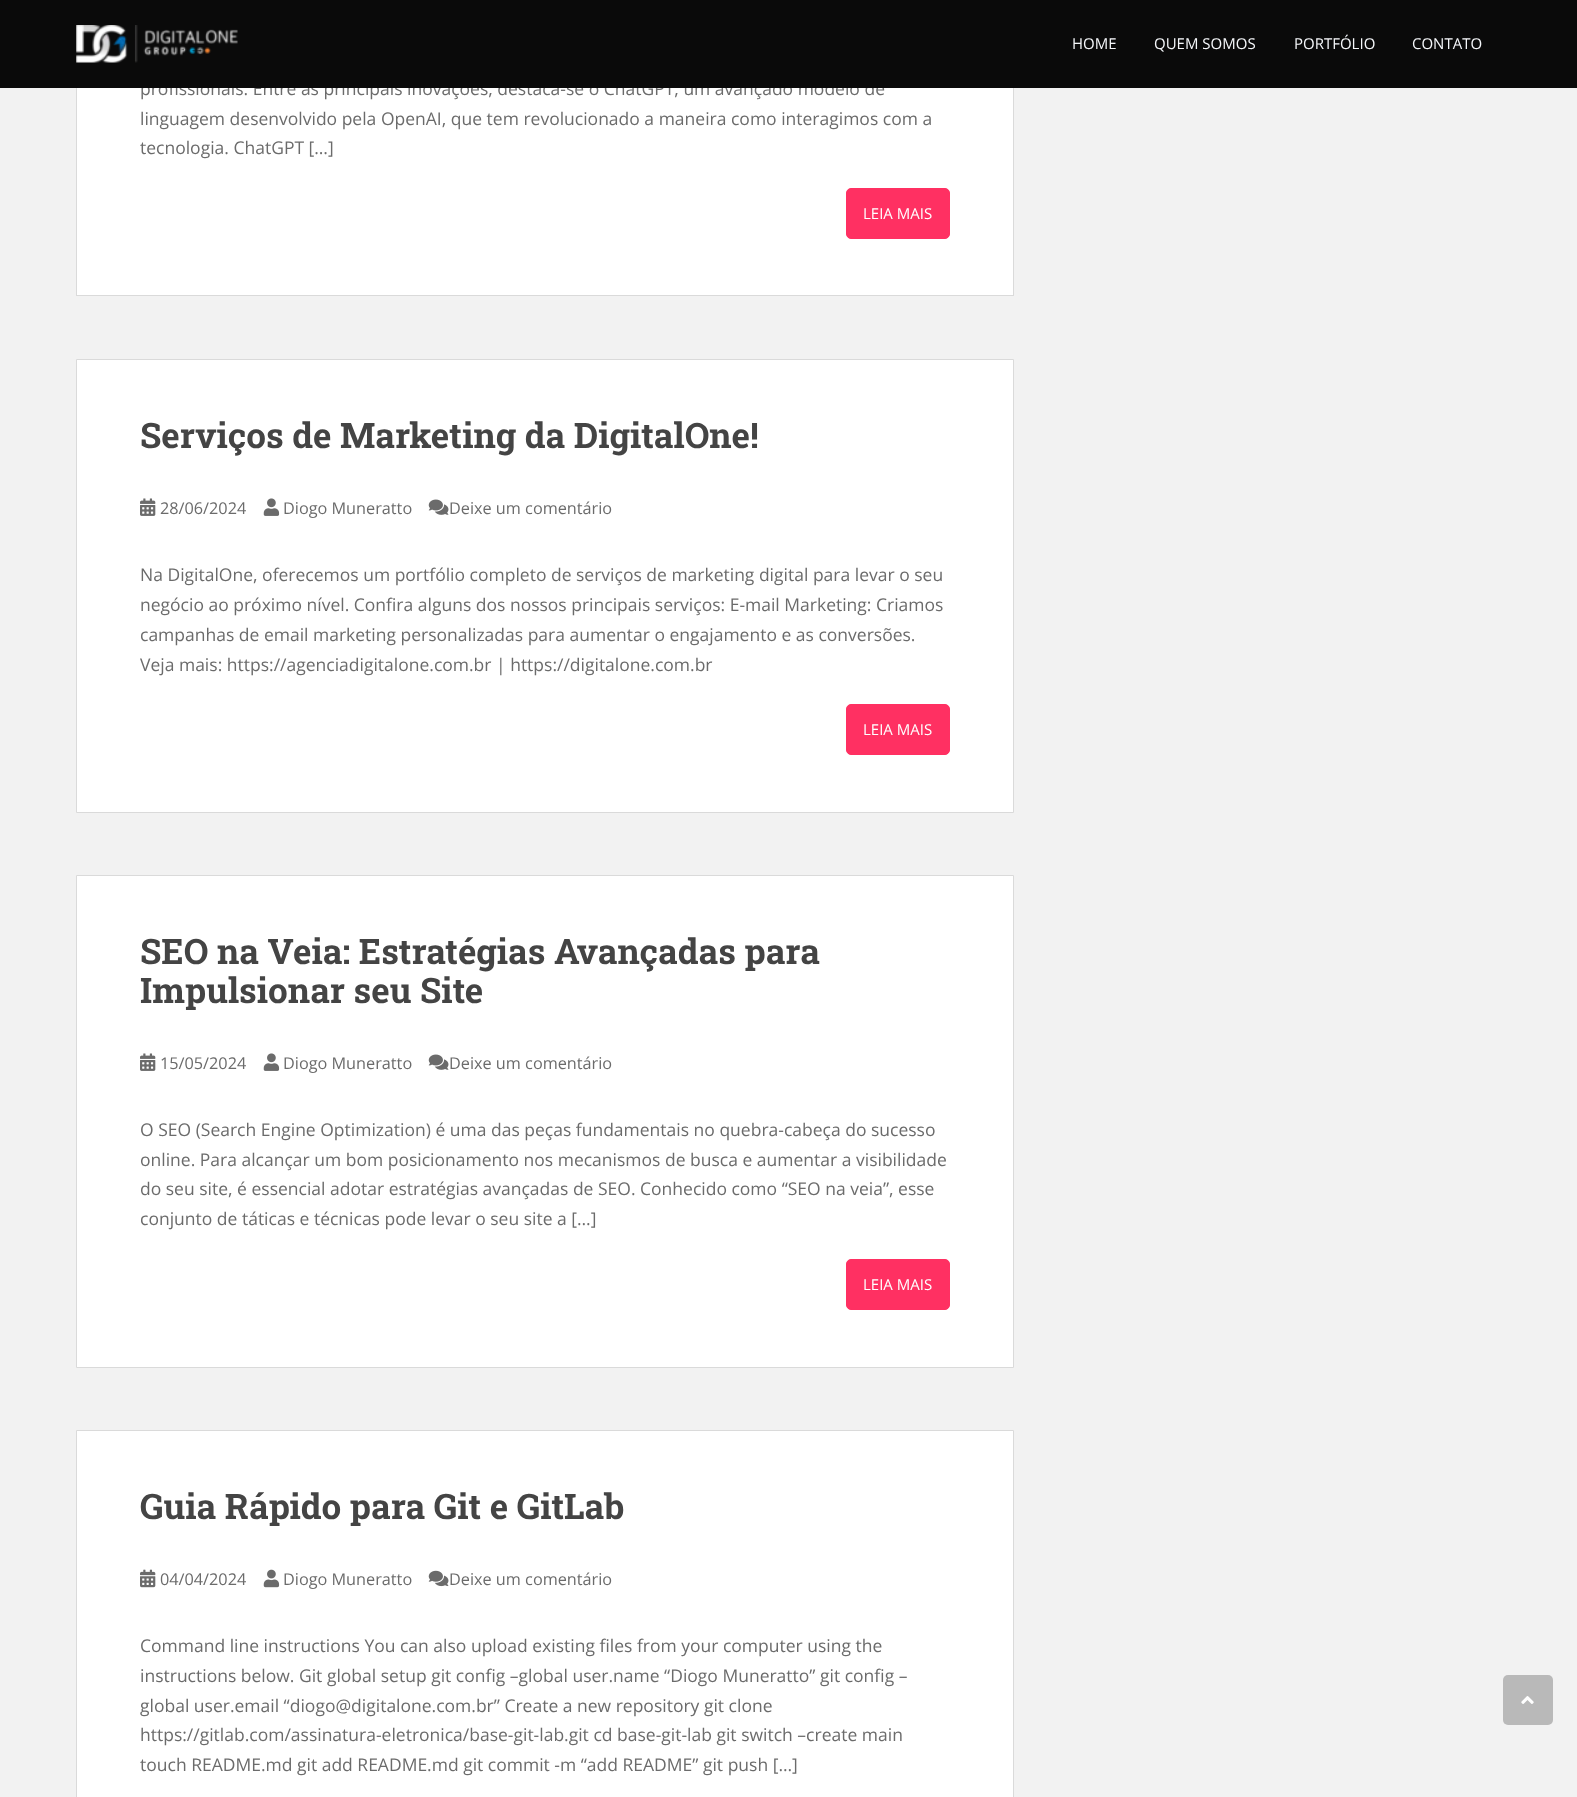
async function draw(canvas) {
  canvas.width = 1577
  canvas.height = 1797
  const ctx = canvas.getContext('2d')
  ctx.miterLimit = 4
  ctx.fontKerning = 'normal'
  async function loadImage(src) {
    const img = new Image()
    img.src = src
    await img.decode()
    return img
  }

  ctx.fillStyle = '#f2f2f2'
  ctx.fillRect(0, 0, 1577, 1797)
  ctx.fillStyle = '#fff'
  ctx.fillRect(77, 88, 936, 207)
  ctx.strokeStyle = '#dadada'
  ctx.strokeRect(76.5, -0.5, 937, 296)
  ctx.font = '17.5px Open Sans'
  ctx.fillStyle = '#6b6b6b'
  ctx.fillText('profissionais. Entre as principais inovações, destaca-se o ChatGPT, um avançado modelo de', 140, 95)
  ctx.fillStyle = '#0a0a0a'
  ctx.fillRect(0, 0, 1577, 88)
  ctx.drawImage(await loadImage('image0.png'), 76, 25, 162, 38)
  ctx.font = '15px Open Sans'
  ctx.fillStyle = '#f5f7fa'
  ctx.fillText('HOME', 1072, 49)
  ctx.fillText('QUEM SOMOS', 1154, 49)
  ctx.fillText('PORTFÓLIO', 1294, 49)
  ctx.fillText('CONTATO', 1412, 49)
  ctx.font = '17.5px Open Sans'
  ctx.fillStyle = '#6b6b6b'
  ctx.fillText('linguagem desenvolvido pela OpenAI, que tem revolucionado a maneira como interagimos com a', 140, 125)
  ctx.fillText('tecnologia. ChatGPT […]', 140, 154)
  ctx.fillStyle = '#ff3062'
  ctx.beginPath()
  ctx.roundRect(846.5, 188.5, 103, 50, 4.5)
  ctx.fill()
  ctx.strokeStyle = '#ff3062'
  ctx.stroke()
  ctx.font = '15px Open Sans'
  ctx.fillStyle = '#fff'
  ctx.fillText('LEIA MAIS', 863, 219)
  ctx.beginPath()
  ctx.rect(76.5, 359.5, 937, 453)
  ctx.fill()
  ctx.strokeStyle = '#dadada'
  ctx.stroke()
  ctx.font = 'bold 35px Roboto Slab'
  ctx.fillStyle = '#444'
  ctx.fillText('Serviços de Marketing da DigitalOne!', 140, 448)
  ctx.drawImage(await loadImage('image1.png'), 140, 498, 16, 18)
  ctx.font = '16.25px Open Sans'
  ctx.fillStyle = '#6b6b6b'
  ctx.fillText('28/06/2024', 160, 514)
  ctx.drawImage(await loadImage('image2.png'), 263, 498, 17, 18)
  ctx.fillText('Diogo Muneratto', 283, 514)
  ctx.drawImage(await loadImage('image3.png'), 428, 499, 21, 16)
  ctx.fillText('Deixe um comentário', 449, 514)
  ctx.font = '17.5px Open Sans'
  ctx.fillText('Na DigitalOne, oferecemos um portfólio completo de serviços de marketing digital para levar o seu', 140, 581)
  ctx.fillText('negócio ao próximo nível. Confira alguns dos nossos principais serviços: E-mail Marketing: Criamos', 140, 611)
  ctx.fillText('campanhas de email marketing personalizadas para aumentar o engajamento e as conversões.', 140, 641)
  ctx.fillText('Veja mais: https://agenciadigitalone.com.br | https://digitalone.com.br', 140, 671)
  ctx.fillStyle = '#ff3062'
  ctx.beginPath()
  ctx.roundRect(846.5, 704.5, 103, 50, 4.5)
  ctx.fill()
  ctx.strokeStyle = '#ff3062'
  ctx.stroke()
  ctx.font = '15px Open Sans'
  ctx.fillStyle = '#fff'
  ctx.fillText('LEIA MAIS', 863, 735)
  ctx.beginPath()
  ctx.rect(76.5, 875.5, 937, 492)
  ctx.fill()
  ctx.strokeStyle = '#dadada'
  ctx.stroke()
  ctx.font = 'bold 35px Roboto Slab'
  ctx.fillStyle = '#444'
  ctx.fillText('SEO na Veia: Estratégias Avançadas para', 140, 964)
  ctx.fillText('Impulsionar seu Site', 140, 1003)
  ctx.drawImage(await loadImage('image1.png'), 140, 1053, 16, 18)
  ctx.font = '16.25px Open Sans'
  ctx.fillStyle = '#6b6b6b'
  ctx.fillText('15/05/2024', 160, 1069)
  ctx.drawImage(await loadImage('image2.png'), 263, 1053, 17, 18)
  ctx.fillText('Diogo Muneratto', 283, 1069)
  ctx.drawImage(await loadImage('image3.png'), 428, 1054, 21, 16)
  ctx.fillText('Deixe um comentário', 449, 1069)
  ctx.font = '17.5px Open Sans'
  ctx.fillText('O SEO (Search Engine Optimization) é uma das peças fundamentais no quebra-cabeça do sucesso', 140, 1136)
  ctx.fillText('online. Para alcançar um bom posicionamento nos mecanismos de busca e aumentar a visibilidade', 140, 1166)
  ctx.fillText('do seu site, é essencial adotar estratégias avançadas de SEO. Conhecido como “SEO na veia”, esse', 140, 1195)
  ctx.fillText('conjunto de táticas e técnicas pode levar o seu site a […]', 140, 1225)
  ctx.fillStyle = '#ff3062'
  ctx.beginPath()
  ctx.roundRect(846.5, 1259.5, 103, 50, 4.5)
  ctx.fill()
  ctx.strokeStyle = '#ff3062'
  ctx.stroke()
  ctx.font = '15px Open Sans'
  ctx.fillStyle = '#fff'
  ctx.fillText('LEIA MAIS', 863, 1290)
  ctx.beginPath()
  ctx.rect(76.5, 1430.5, 937, 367)
  ctx.fill()
  ctx.strokeStyle = '#dadada'
  ctx.stroke()
  ctx.font = 'bold 35px Roboto Slab'
  ctx.fillStyle = '#444'
  ctx.fillText('Guia Rápido para Git e GitLab', 140, 1519)
  ctx.drawImage(await loadImage('image4.png'), 140, 1569, 16, 19)
  ctx.font = '16.25px Open Sans'
  ctx.fillStyle = '#6b6b6b'
  ctx.fillText('04/04/2024', 160, 1585)
  ctx.drawImage(await loadImage('image5.png'), 263, 1569, 17, 19)
  ctx.fillText('Diogo Muneratto', 283, 1585)
  ctx.drawImage(await loadImage('image6.png'), 428, 1570, 21, 17)
  ctx.fillText('Deixe um comentário', 449, 1585)
  ctx.font = '17.5px Open Sans'
  ctx.fillText('Command line instructions You can also upload existing files from your computer using the', 140, 1652)
  ctx.fillText('instructions below. Git global setup git config –global user.name “Diogo Muneratto” git config –', 140, 1682)
  ctx.fillText('global user.email “diogo@digitalone.com.br” Create a new repository git clone', 140, 1712)
  ctx.fillText('https://gitlab.com/assinatura-eletronica/base-git-lab.git cd base-git-lab git switch –create main', 140, 1741)
  ctx.fillText('touch README.md git add README.md git commit -m “add README” git push […]', 140, 1771)
  ctx.fillStyle = '#b9b9b9'
  ctx.beginPath()
  ctx.roundRect(1503, 1675, 50, 50, 5)
  ctx.fill()
  ctx.drawImage(await loadImage('image7.png'), 1521, 1696, 13, 8)
}

draw(document.querySelector('canvas'))
